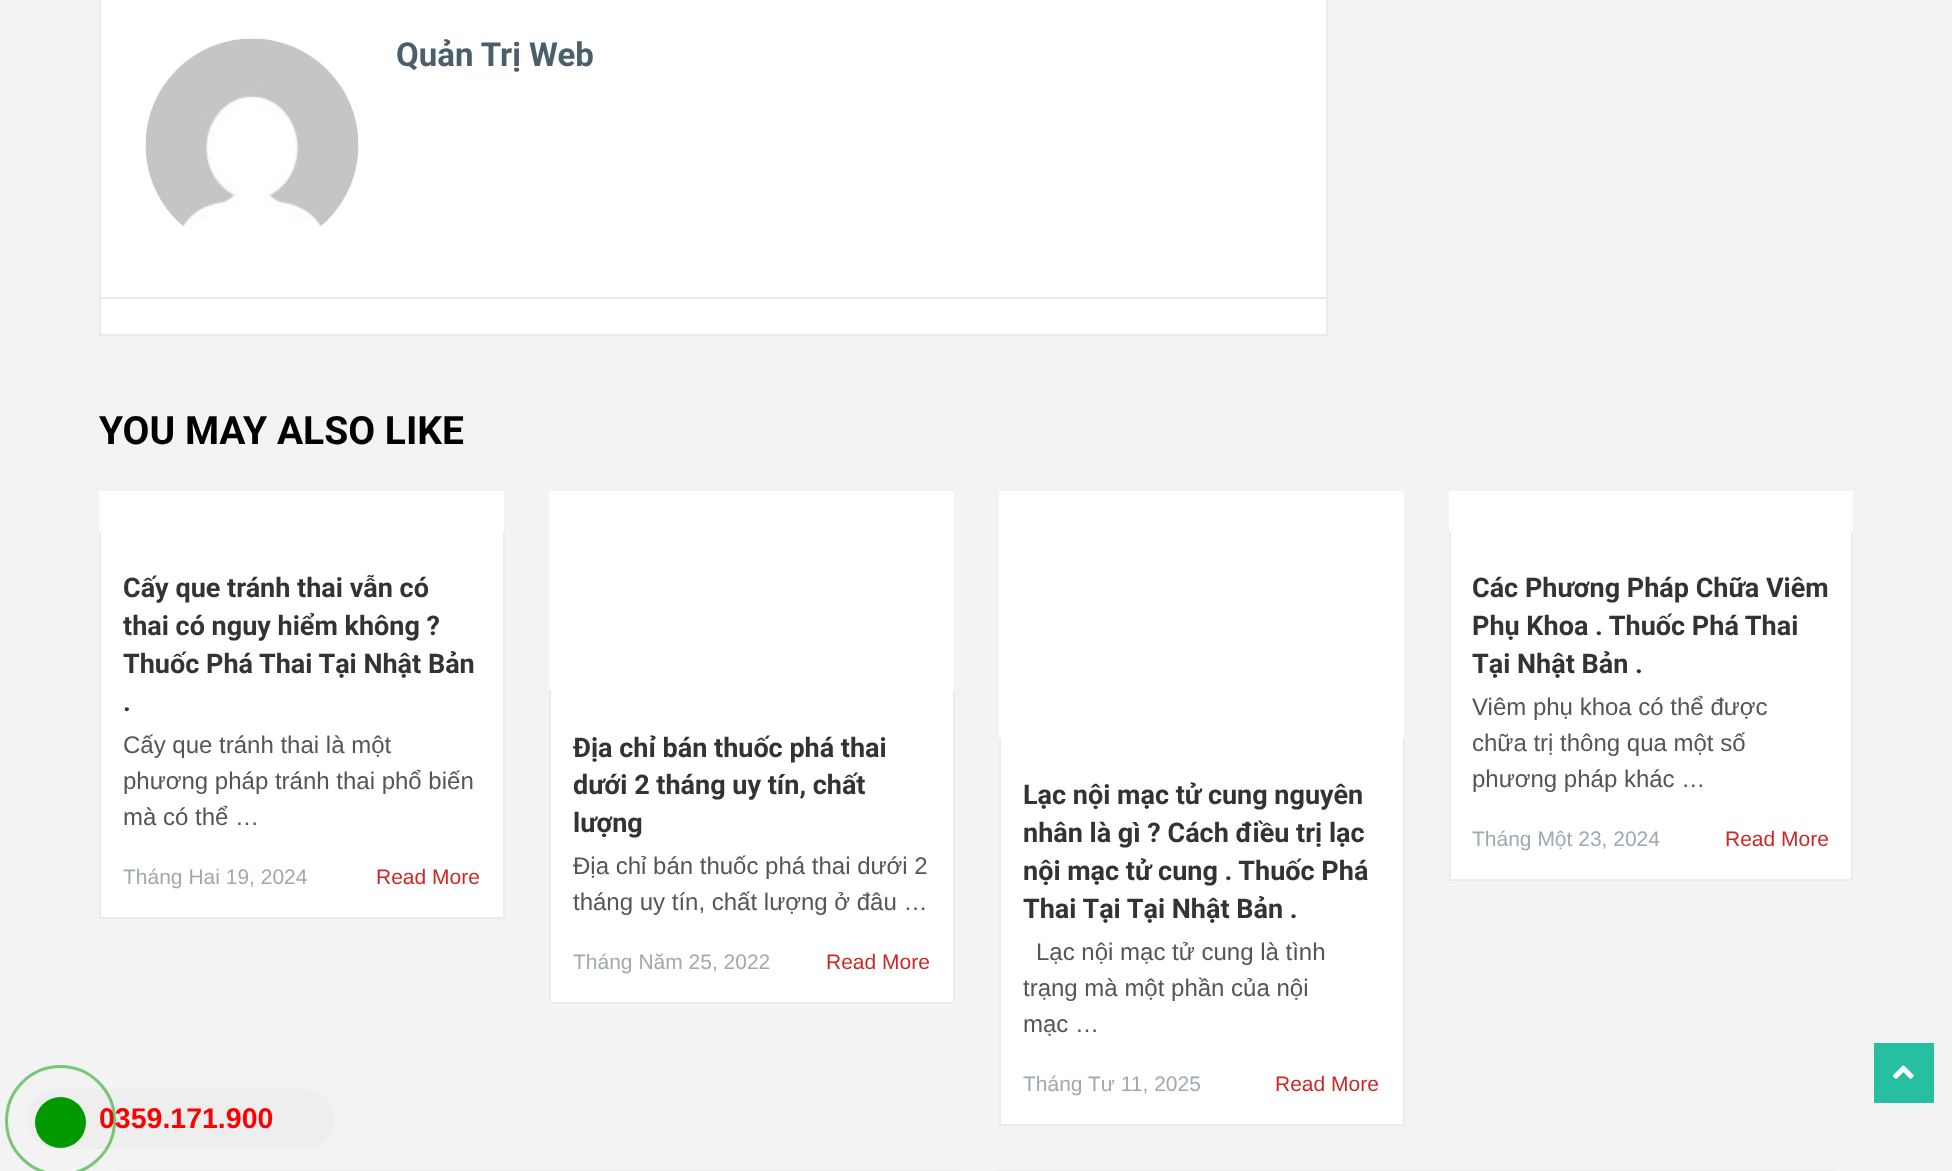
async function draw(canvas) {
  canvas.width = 1952
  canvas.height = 1171
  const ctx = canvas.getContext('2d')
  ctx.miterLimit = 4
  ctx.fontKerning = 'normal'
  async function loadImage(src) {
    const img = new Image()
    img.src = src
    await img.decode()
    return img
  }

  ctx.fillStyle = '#f3f3f3'
  ctx.fillRect(0, 0, 1952, 1171)
  ctx.fillStyle = '#fff'
  ctx.beginPath()
  ctx.rect(100, -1, 1227, 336)
  ctx.fill()
  ctx.strokeStyle = '#eaebec'
  ctx.lineWidth = 2
  ctx.stroke()
  ctx.fillStyle = '#eaebec'
  ctx.fillRect(101, 297, 1225, 2)
  ctx.drawImage(await loadImage('image0.png'), 145, 38, 214, 192)
  ctx.font = 'bold 33px Roboto'
  ctx.fillStyle = '#4b5f6b'
  ctx.fillText('Quản Trị Web', 396, 66)
  ctx.font = 'bold 39px Roboto'
  ctx.fillStyle = '#000'
  ctx.fillText('YOU MAY ALSO LIKE', 99, 444)
  ctx.fillStyle = '#fff'
  ctx.fillRect(99, 491, 405, 426)
  ctx.font = 'bold 27px Roboto'
  ctx.fillStyle = '#333'
  ctx.fillText('Cấy que tránh thai vẫn có', 123, 597)
  ctx.fillText('thai có nguy hiểm không ?', 123, 635)
  ctx.fillText('Thuốc Phá Thai Tại Nhật Bản', 123, 673)
  ctx.fillText('.', 123, 711)
  ctx.fillStyle = '#eaebec'
  ctx.fillRect(503, 531, 2, 387)
  ctx.fillRect(99, 531, 2, 305)
  ctx.font = '24px Liberation Sans'
  ctx.fillStyle = '#555'
  ctx.fillText('Cấy que tránh thai là một', 123, 753)
  ctx.fillText('phương pháp tránh thai phổ biến', 123, 789)
  ctx.fillText('mà có thể …', 123, 825)
  ctx.fillStyle = '#eaebec'
  ctx.fillRect(99, 917, 405, 2)
  ctx.fillRect(99, 836, 2, 82)
  ctx.font = '21px Liberation Sans'
  ctx.fillStyle = '#9fa9b0'
  ctx.fillText('Tháng Hai 19, 2024', 123, 884)
  ctx.fillStyle = '#ce2727'
  ctx.fillText('Read More', 376, 884)
  ctx.fillStyle = '#fff'
  ctx.fillRect(549, 491, 405, 511)
  ctx.font = 'bold 27px Roboto'
  ctx.fillStyle = '#333'
  ctx.fillText('Địa chỉ bán thuốc phá thai', 573, 757)
  ctx.fillText('dưới 2 tháng uy tín, chất', 573, 794)
  ctx.fillText('lượng', 573, 832)
  ctx.fillStyle = '#eaebec'
  ctx.fillRect(953, 690, 2, 314)
  ctx.fillRect(549, 690, 2, 231)
  ctx.font = '24px Liberation Sans'
  ctx.fillStyle = '#555'
  ctx.fillText('Địa chỉ bán thuốc phá thai dưới 2', 573, 874)
  ctx.fillText('tháng uy tín, chất lượng ở đâu …', 573, 910)
  ctx.fillStyle = '#eaebec'
  ctx.fillRect(549, 1002, 405, 2)
  ctx.fillRect(549, 921, 2, 83)
  ctx.font = '21px Liberation Sans'
  ctx.fillStyle = '#9fa9b0'
  ctx.fillText('Tháng Năm 25, 2022', 573, 969)
  ctx.fillStyle = '#ce2727'
  ctx.fillText('Read More', 826, 969)
  ctx.fillStyle = '#fff'
  ctx.fillRect(999, 491, 405, 633)
  ctx.font = 'bold 27px Roboto'
  ctx.fillStyle = '#333'
  ctx.fillText('Lạc nội mạc tử cung nguyên', 1023, 804)
  ctx.fillText('nhân là gì ? Cách điều trị lạc', 1023, 842)
  ctx.fillText('nội mạc tử cung . Thuốc Phá', 1023, 880)
  ctx.fillText('Thai Tại Tại Nhật Bản .', 1023, 918)
  ctx.fillStyle = '#eaebec'
  ctx.fillRect(1403, 738, 2, 387)
  ctx.fillRect(999, 738, 2, 305)
  ctx.font = '24px Liberation Sans'
  ctx.fillStyle = '#555'
  ctx.fillText('Lạc nội mạc tử cung là tình', 1036, 960)
  ctx.fillText('trạng mà một phần của nội', 1023, 996)
  ctx.fillText('mạc …', 1023, 1032)
  ctx.fillStyle = '#eaebec'
  ctx.fillRect(999, 1124, 405, 2)
  ctx.fillRect(999, 1043, 2, 82)
  ctx.font = '21px Liberation Sans'
  ctx.fillStyle = '#9fa9b0'
  ctx.fillText('Tháng Tư 11, 2025', 1023, 1091)
  ctx.fillStyle = '#ce2727'
  ctx.fillText('Read More', 1275, 1091)
  ctx.fillStyle = '#fff'
  ctx.fillRect(1449, 491, 404, 388)
  ctx.font = 'bold 27px Roboto'
  ctx.fillStyle = '#333'
  ctx.fillText('Các Phương Pháp Chữa Viêm', 1472, 597)
  ctx.fillText('Phụ Khoa . Thuốc Phá Thai', 1472, 635)
  ctx.fillText('Tại Nhật Bản .', 1472, 673)
  ctx.fillStyle = '#eaebec'
  ctx.fillRect(1851, 531, 2, 350)
  ctx.fillRect(1449, 531, 2, 267)
  ctx.font = '24px Liberation Sans'
  ctx.fillStyle = '#555'
  ctx.fillText('Viêm phụ khoa có thể được', 1472, 715)
  ctx.fillText('chữa trị thông qua một số', 1472, 751)
  ctx.fillText('phương pháp khác …', 1472, 787)
  ctx.fillStyle = '#eaebec'
  ctx.fillRect(1449, 879, 404, 2)
  ctx.fillRect(1449, 798, 2, 83)
  ctx.font = '21px Liberation Sans'
  ctx.fillStyle = '#9fa9b0'
  ctx.fillText('Tháng Một 23, 2024', 1472, 846)
  ctx.fillStyle = '#ce2727'
  ctx.fillText('Read More', 1725, 846)
  ctx.fillStyle = '#eee'
  ctx.beginPath()
  ctx.roundRect(27, 1089, 308, 60, 30)
  ctx.fill()
  ctx.font = 'bold 28.5px Liberation Sans'
  ctx.fillStyle = '#f00'
  ctx.fillText('0359.171.900', 99, 1128)
  ctx.beginPath()
  ctx.arc(60.5, 1120.5, 54, 0, 2 * Math.PI)
  ctx.strokeStyle = '#00990080'
  ctx.lineWidth = 3
  ctx.stroke()
  ctx.fillStyle = '#090'
  ctx.beginPath()
  ctx.arc(60.5, 1122.5, 25.5, 0, 2 * Math.PI)
  ctx.fill()
  ctx.strokeStyle = '#eaebec'
  ctx.lineWidth = 2
  ctx.strokeRect(118, 1171, 840, 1)
  ctx.strokeRect(996, 1171, 839, 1)
  ctx.fillStyle = '#26bfa1'
  ctx.fillRect(1874, 1043, 60, 60)
  ctx.drawImage(await loadImage('image1.png'), 1893, 1065, 21, 14)
}

draw(document.querySelector('canvas'))
